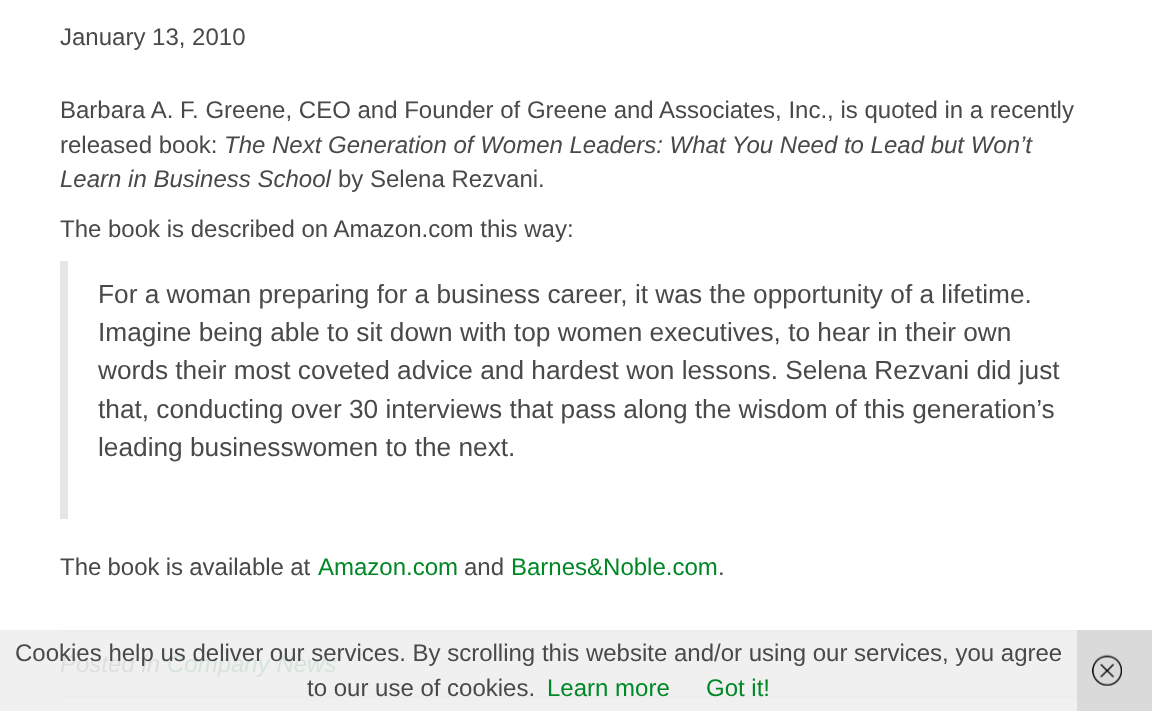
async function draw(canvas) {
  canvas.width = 1152
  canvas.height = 711
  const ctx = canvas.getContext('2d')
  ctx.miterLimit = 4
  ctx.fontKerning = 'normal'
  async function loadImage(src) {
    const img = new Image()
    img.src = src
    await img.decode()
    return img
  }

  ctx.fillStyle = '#fff'
  ctx.fillRect(0, 0, 1152, 711)
  ctx.fillStyle = '#f0f0f0'
  ctx.fillRect(0, 630, 1077, 81)
  ctx.fillStyle = '#dadada'
  ctx.fillRect(1077, 630, 75, 81)
  ctx.font = '24px Liberation Sans'
  ctx.fillStyle = '#494949'
  ctx.fillText('January 13, 2010', 60, 45)
  ctx.fillText('Barbara A. F. Greene, CEO and Founder of Greene and Associates, Inc., is quoted in a recently', 60, 118)
  ctx.fillText('released book:', 60, 153)
  ctx.font = 'italic 24px Liberation Sans'
  ctx.fillText('The Next Generation of Women Leaders: What You Need to Lead but Won’t', 224, 153)
  ctx.fillText('Learn in Business School', 60, 187)
  ctx.font = '24px Liberation Sans'
  ctx.fillText('by Selena Rezvani.', 338, 187)
  ctx.fillText('The book is described on Amazon.com this way:', 60, 237)
  ctx.fillStyle = '#e6e6e6'
  ctx.fillRect(60, 261, 8, 258)
  ctx.font = '26.25px Liberation Sans'
  ctx.fillStyle = '#494949'
  ctx.fillText('For a woman preparing for a business career, it was the opportunity of a lifetime.', 98, 303)
  ctx.fillText('Imagine being able to sit down with top women executives, to hear in their own', 98, 341)
  ctx.fillText('words their most coveted advice and hardest won lessons. Selena Rezvani did just', 98, 379)
  ctx.fillText('that, conducting over 30 interviews that pass along the wisdom of this generation’s', 98, 418)
  ctx.fillText('leading businesswomen to the next.', 98, 456)
  ctx.wordSpacing = '-0.5px'
  ctx.font = '24px Liberation Sans'
  ctx.fillText('The book is available at', 60, 575)
  ctx.wordSpacing = '0px'
  ctx.fillStyle = '#008826'
  ctx.fillText('Amazon.com', 318, 575)
  ctx.fillStyle = '#494949'
  ctx.fillText('and', 464, 575)
  ctx.fillStyle = '#008826'
  ctx.fillText('Barnes&Noble.com', 511, 575)
  ctx.fillStyle = '#494949'
  ctx.fillText('.', 718, 575)
  ctx.fillStyle = '#ededed'
  ctx.fillRect(60, 630, 1017, 2)
  ctx.font = 'italic 24px Liberation Sans'
  ctx.fillStyle = '#dedede'
  ctx.fillText('Posted in', 60, 672)
  ctx.fillStyle = '#d6e4da'
  ctx.fillText('Company News', 167, 672)
  ctx.fillStyle = '#ededed'
  ctx.fillRect(60, 696, 1017, 2)
  ctx.font = '24px Liberation Sans'
  ctx.fillStyle = '#494949'
  ctx.fillText('Cookies help us deliver our services. By scrolling this website and/or using our services, you agree', 15, 661)
  ctx.fillText('to our use of cookies.', 307, 696)
  ctx.fillStyle = '#008826'
  ctx.fillText('Learn more', 547, 696)
  ctx.fillText('Got it!', 706, 696)
  ctx.drawImage(await loadImage('image0.png'), 1092, 654, 30, 32)
}

draw(document.querySelector('canvas'))
